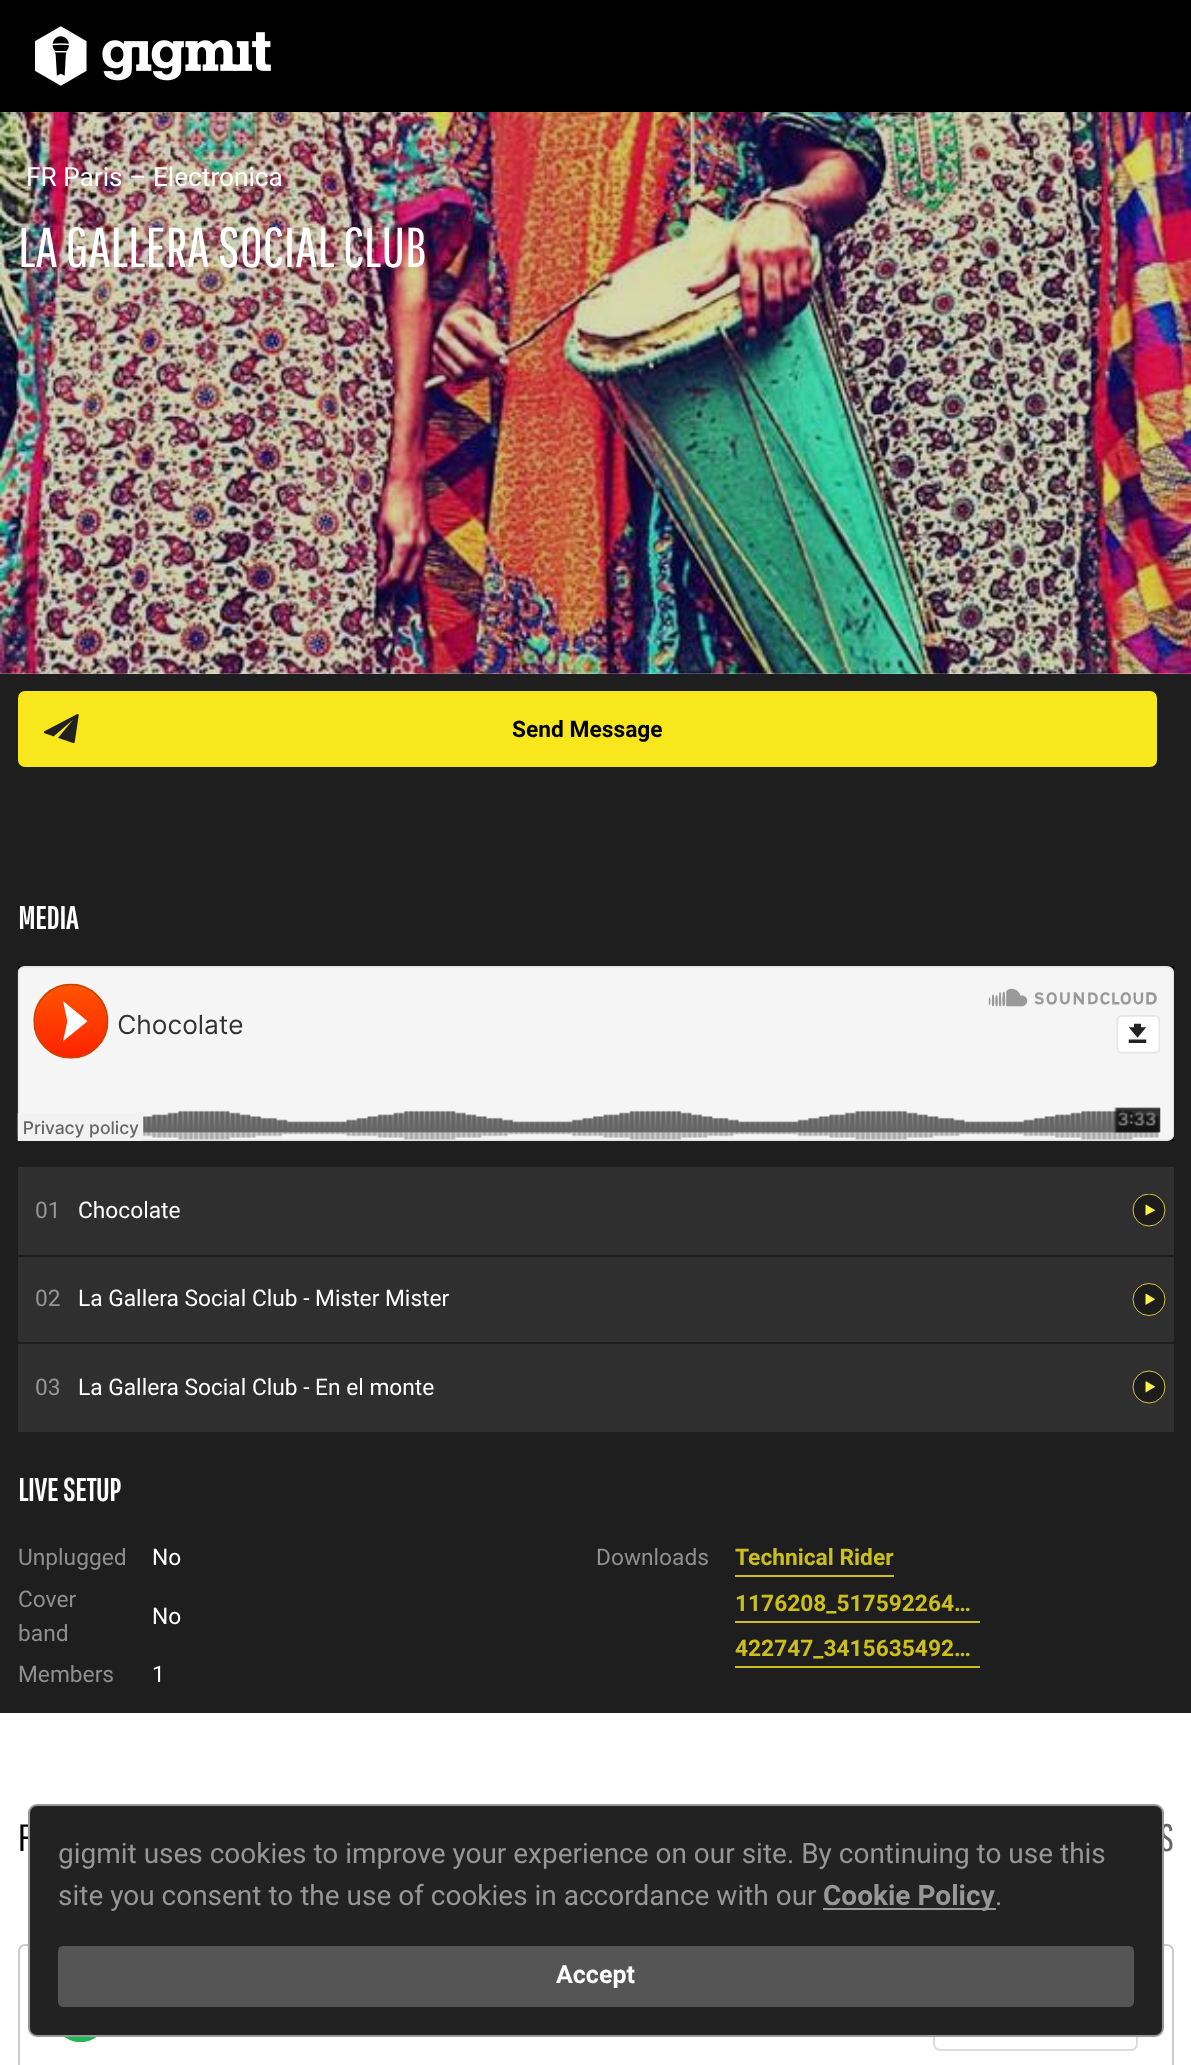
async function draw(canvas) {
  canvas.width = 1191
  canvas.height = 2065
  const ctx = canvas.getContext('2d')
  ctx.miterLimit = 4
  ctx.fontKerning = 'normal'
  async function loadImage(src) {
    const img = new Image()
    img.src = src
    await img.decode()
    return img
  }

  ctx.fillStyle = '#fff'
  ctx.fillRect(0, 0, 1191, 2065)
  ctx.fillStyle = '#000'
  ctx.fillRect(0, 0, 1191, 112)
  ctx.drawImage(await loadImage('image0.png'), 35, 26, 236, 60)
  ctx.drawImage(await loadImage('image1.png'), 0, 112, 1191, 562)
  ctx.font = '26.25px Roboto'
  ctx.fillStyle = '#fff'
  ctx.fillText('FR Paris – Electronica', 26, 186)
  ctx.font = '56px Pathway Gothic One'
  ctx.fillText('LA GALLERA SOCIAL CLUB', 18, 267)
  ctx.fillStyle = '#1e1e1e'
  ctx.fillRect(0, 674, 1191, 1039)
  ctx.fillStyle = '#f8e71c'
  ctx.beginPath()
  ctx.roundRect(18, 691, 1139, 76, 7)
  ctx.fill()
  ctx.drawImage(await loadImage('image2.png'), 44, 714, 35, 30)
  ctx.font = 'bold 22.75px Roboto'
  ctx.fillStyle = '#000'
  ctx.fillText('Send Message', 512, 737)
  ctx.font = 'bold 31.5px Pathway Gothic One'
  ctx.fillStyle = '#fff'
  ctx.fillText('MEDIA', 18, 929)
  ctx.fillStyle = '#000'
  ctx.fillRect(18, 966, 1156, 175)
  ctx.drawImage(await loadImage('image3.png'), 17, 966, 1157, 175)
  ctx.fillStyle = '#2f2f2f'
  ctx.fillRect(18, 1167, 1156, 88)
  ctx.font = '22.75px Roboto'
  ctx.fillStyle = '#979797'
  ctx.fillText('01', 35, 1218)
  ctx.fillStyle = '#fff'
  ctx.fillText('Chocolate', 78, 1218)
  ctx.fillStyle = '#1c1c1c'
  ctx.beginPath()
  ctx.arc(1149, 1210, 16, 0, 2 * Math.PI)
  ctx.fill()
  ctx.save()
  ctx.beginPath()
  ctx.rect(1132, 1194, 34, 33)
  ctx.clip()
  ctx.beginPath()
  ctx.arc(1149, 1210, 16, 0, 2 * Math.PI)
  ctx.strokeStyle = '#ffef4d'
  ctx.lineWidth = 0.8
  ctx.stroke()
  ctx.restore()
  ctx.fillStyle = '#ffef4d'
  ctx.beginPath()
  ctx.moveTo(1155, 1210)
  ctx.lineTo(1155, 1210.5)
  ctx.lineTo(1145.5, 1215.5)
  ctx.lineTo(1145.5, 1206.5)
  ctx.bezierCurveTo(1145.5, 1203, 1146, 1204.5, 1149, 1206.5)
  ctx.closePath()
  ctx.fill()
  ctx.fillStyle = '#2f2f2f'
  ctx.fillRect(18, 1257, 1156, 85)
  ctx.fillStyle = '#979797'
  ctx.fillText('02', 35, 1306)
  ctx.fillStyle = '#fff'
  ctx.fillText('La Gallera Social Club - Mister Mister', 78, 1306)
  ctx.fillStyle = '#1c1c1c'
  ctx.beginPath()
  ctx.arc(1149, 1299.5, 16, 0, 2 * Math.PI)
  ctx.fill()
  ctx.strokeStyle = '#ffef4d'
  ctx.lineWidth = 0.8
  ctx.stroke()
  ctx.fillStyle = '#ffef4d'
  ctx.beginPath()
  ctx.moveTo(1155, 1299)
  ctx.lineTo(1155, 1299.5)
  ctx.lineTo(1145.5, 1305)
  ctx.lineTo(1145.5, 1296)
  ctx.bezierCurveTo(1145.5, 1292.5, 1146, 1294, 1149, 1295.5)
  ctx.closePath()
  ctx.fill()
  ctx.fillStyle = '#2f2f2f'
  ctx.fillRect(18, 1344, 1156, 88)
  ctx.fillStyle = '#979797'
  ctx.fillText('03', 35, 1395)
  ctx.fillStyle = '#fff'
  ctx.fillText('La Gallera Social Club - En el monte', 78, 1395)
  ctx.fillStyle = '#1c1c1c'
  ctx.beginPath()
  ctx.arc(1149, 1387, 16, 0, 2 * Math.PI)
  ctx.fill()
  ctx.stroke()
  ctx.fillStyle = '#ffef4d'
  ctx.beginPath()
  ctx.moveTo(1155, 1386.5)
  ctx.lineTo(1155, 1387)
  ctx.lineTo(1145.5, 1392.5)
  ctx.lineTo(1145.5, 1383.5)
  ctx.bezierCurveTo(1145.5, 1380, 1146, 1381.5, 1149, 1383)
  ctx.closePath()
  ctx.fill()
  ctx.font = 'bold 31.5px Pathway Gothic One'
  ctx.fillStyle = '#fff'
  ctx.fillText('LIVE SETUP', 18, 1501)
  ctx.font = '22.75px Roboto'
  ctx.fillStyle = '#8f8f8f'
  ctx.fillText('Unplugged', 18, 1565)
  ctx.fillStyle = '#fff'
  ctx.fillText('No', 152, 1565)
  ctx.fillStyle = '#8f8f8f'
  ctx.fillText('Cover', 18, 1607)
  ctx.fillText('band', 18, 1641)
  ctx.fillStyle = '#fff'
  ctx.fillText('No', 152, 1624)
  ctx.fillStyle = '#8f8f8f'
  ctx.fillText('Members', 18, 1682)
  ctx.fillStyle = '#fff'
  ctx.fillText('1', 152, 1682)
  ctx.fillStyle = '#8f8f8f'
  ctx.fillText('Downloads', 596, 1565)
  ctx.fillStyle = '#ccbf1c'
  ctx.fillRect(735, 1575, 159, 2)
  ctx.font = 'bold 22.75px Roboto'
  ctx.fillText('Technical Rider', 735, 1565)
  ctx.fillRect(735, 1621, 245, 2)
  ctx.fillText('1176208_517592264…', 735, 1611)
  ctx.fillRect(735, 1666, 245, 2)
  ctx.fillText('422747_3415635492…', 735, 1656)
  ctx.font = '38px Pathway Gothic One'
  ctx.fillStyle = '#000'
  ctx.fillText('F', 18, 1851)
  ctx.fillStyle = '#686868'
  ctx.fillText('S', 1159, 1851)
  ctx.beginPath()
  ctx.roundRect(19, 1945, 1154, 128, 6)
  ctx.strokeStyle = '#ccc'
  ctx.lineWidth = 2
  ctx.stroke()
  ctx.drawImage(await loadImage('image4.png'), 65, 2037, 31, 5)
  ctx.beginPath()
  ctx.roundRect(934, 1982, 203, 68, 6)
  ctx.strokeStyle = '#ddd'
  ctx.stroke()
  ctx.fillStyle = '#222'
  ctx.beginPath()
  ctx.roundRect(29, 1805, 1134, 231, 8)
  ctx.fill()
  ctx.strokeStyle = '#999'
  ctx.stroke()
  ctx.font = '28px Roboto'
  ctx.fillStyle = '#979797'
  ctx.fillText('gigmit uses cookies to improve your experience on our site. By continuing to use this', 58, 1863)
  ctx.fillText('site you consent to the use of cookies in accordance with our', 58, 1905)
  ctx.fillStyle = '#999'
  ctx.fillRect(823, 1908, 173, 2)
  ctx.font = 'bold 28px Roboto'
  ctx.fillStyle = '#979797'
  ctx.fillText('Cookie Policy', 823, 1905)
  ctx.font = '28px Roboto'
  ctx.fillText('.', 995, 1905)
  ctx.fillStyle = '#555'
  ctx.beginPath()
  ctx.roundRect(58, 1946, 1076, 61, 5)
  ctx.fill()
  ctx.font = 'bold 25px Roboto'
  ctx.fillStyle = '#fff'
  ctx.fillText('Accept', 556, 1983)
}

draw(document.querySelector('canvas'))
